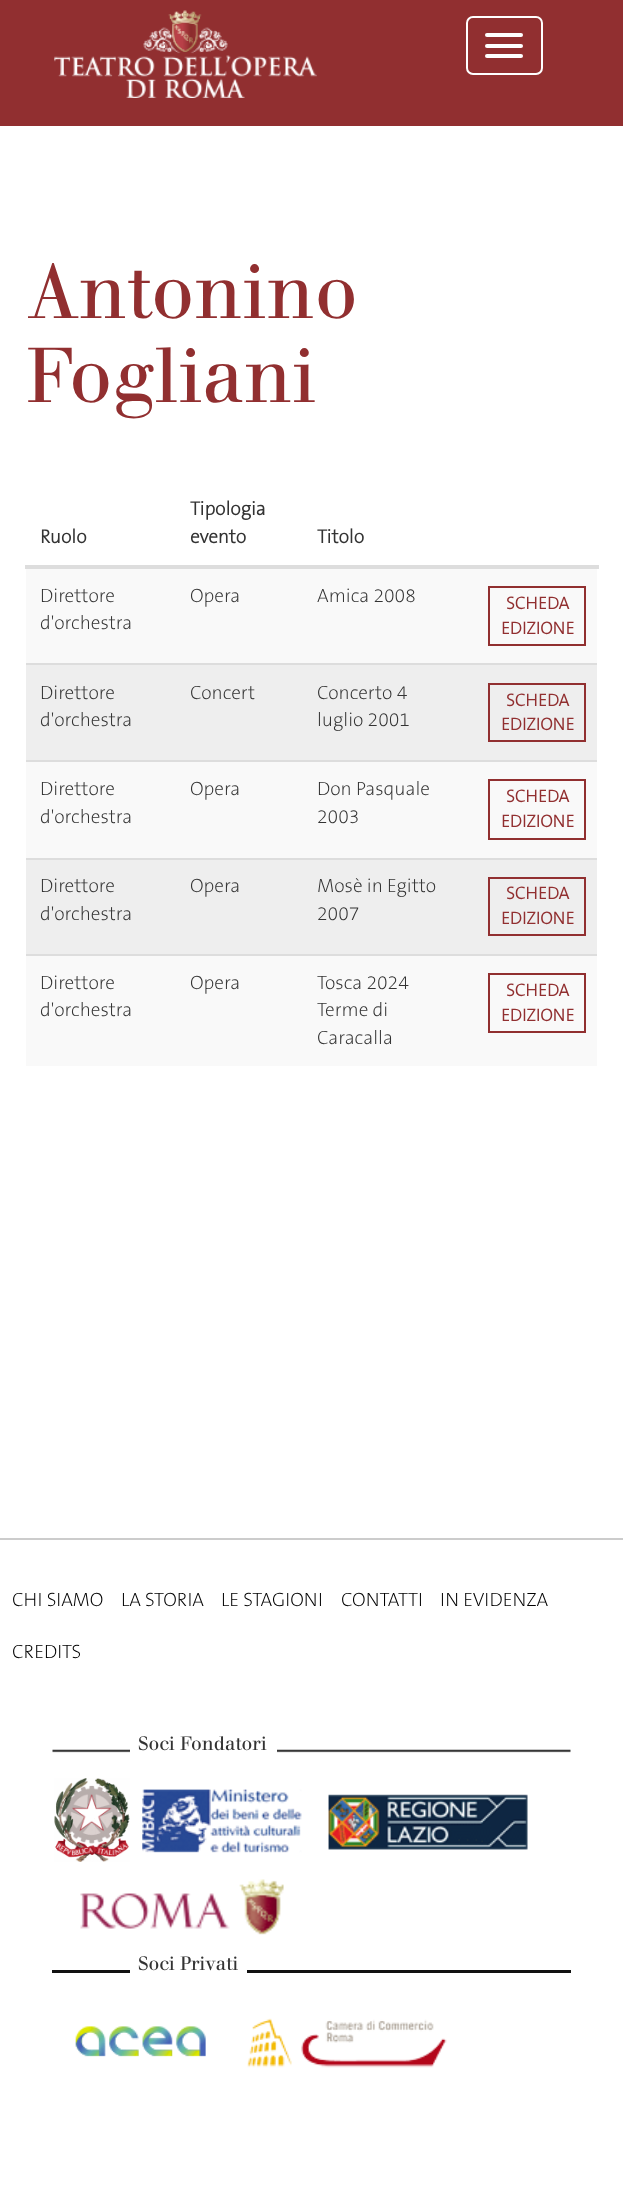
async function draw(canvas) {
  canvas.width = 623
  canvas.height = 2189
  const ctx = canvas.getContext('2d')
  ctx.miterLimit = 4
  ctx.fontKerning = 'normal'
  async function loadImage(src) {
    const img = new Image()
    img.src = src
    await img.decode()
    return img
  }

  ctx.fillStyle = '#fff'
  ctx.fillRect(0, 0, 623, 2189)
  ctx.fillStyle = '#912f30'
  ctx.fillRect(0, 0, 623, 126)
  ctx.drawImage(await loadImage('image0.png'), 54, 10, 263, 88)
  ctx.beginPath()
  ctx.roundRect(467, 17, 75, 57, 6)
  ctx.strokeStyle = '#fff'
  ctx.lineWidth = 2
  ctx.stroke()
  ctx.fillStyle = '#fff'
  ctx.beginPath()
  ctx.roundRect(485, 33, 38, 4, 2)
  ctx.fill()
  ctx.beginPath()
  ctx.roundRect(485, 44, 38, 4, 2)
  ctx.fill()
  ctx.beginPath()
  ctx.roundRect(485, 54, 38, 4, 2)
  ctx.fill()
  ctx.font = '77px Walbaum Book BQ'
  ctx.fillStyle = '#912f30'
  ctx.fillText('Antonino', 26, 318)
  ctx.fillText('Fogliani', 26, 402)
  ctx.font = 'bold 19.25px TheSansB'
  ctx.fillStyle = '#333'
  ctx.fillText('Ruolo', 40, 543)
  ctx.fillText('Tipologia', 190, 515)
  ctx.fillText('evento', 190, 543)
  ctx.fillText('Titolo', 317, 543)
  ctx.fillStyle = '#ddd'
  ctx.fillRect(25, 565, 574, 4)
  ctx.fillStyle = '#f9f9f9'
  ctx.fillRect(26, 569, 571, 94)
  ctx.font = '200 19.25px TheSansB'
  ctx.fillStyle = '#333'
  ctx.fillText('Direttore', 40, 602)
  ctx.fillText('d\'orchestra', 40, 629)
  ctx.fillText('Opera', 190, 602)
  ctx.fillText('Amica 2008', 317, 602)
  ctx.strokeStyle = '#912f30'
  ctx.strokeRect(489, 587, 96, 58)
  ctx.font = 'bold 17.5px TheSansB'
  ctx.fillStyle = '#912f30'
  ctx.fillText('SCHEDA', 506, 609)
  ctx.fillText('EDIZIONE', 501, 634)
  ctx.fillStyle = '#eee'
  ctx.fillRect(26, 665, 571, 95)
  ctx.font = '200 19.25px TheSansB'
  ctx.fillStyle = '#333'
  ctx.fillText('Direttore', 40, 699)
  ctx.fillText('d\'orchestra', 40, 726)
  ctx.fillText('Concert', 190, 699)
  ctx.fillText('Concerto 4', 317, 699)
  ctx.fillText('luglio 2001', 317, 726)
  ctx.fillStyle = '#ddd'
  ctx.fillRect(26, 663, 571, 2)
  ctx.strokeRect(489, 684, 96, 57)
  ctx.font = 'bold 17.5px TheSansB'
  ctx.fillStyle = '#912f30'
  ctx.fillText('SCHEDA', 506, 706)
  ctx.fillText('EDIZIONE', 501, 730)
  ctx.fillStyle = '#f9f9f9'
  ctx.fillRect(26, 762, 571, 96)
  ctx.font = '200 19.25px TheSansB'
  ctx.fillStyle = '#333'
  ctx.fillText('Direttore', 40, 795)
  ctx.fillText('d\'orchestra', 40, 823)
  ctx.fillText('Opera', 190, 795)
  ctx.fillText('Don Pasquale', 317, 795)
  ctx.fillText('2003', 317, 823)
  ctx.fillStyle = '#ddd'
  ctx.fillRect(26, 760, 571, 2)
  ctx.strokeRect(489, 780, 96, 59)
  ctx.font = 'bold 17.5px TheSansB'
  ctx.fillStyle = '#912f30'
  ctx.fillText('SCHEDA', 506, 802)
  ctx.fillText('EDIZIONE', 501, 827)
  ctx.fillStyle = '#eee'
  ctx.fillRect(26, 860, 571, 94)
  ctx.font = '200 19.25px TheSansB'
  ctx.fillStyle = '#333'
  ctx.fillText('Direttore', 40, 892)
  ctx.fillText('d\'orchestra', 40, 920)
  ctx.fillText('Opera', 190, 892)
  ctx.fillText('Mosè in Egitto', 317, 892)
  ctx.fillText('2007', 317, 920)
  ctx.fillStyle = '#ddd'
  ctx.fillRect(26, 858, 571, 2)
  ctx.strokeRect(489, 878, 96, 57)
  ctx.font = 'bold 17.5px TheSansB'
  ctx.fillStyle = '#912f30'
  ctx.fillText('SCHEDA', 506, 899)
  ctx.fillText('EDIZIONE', 501, 924)
  ctx.fillStyle = '#f9f9f9'
  ctx.fillRect(26, 956, 571, 110)
  ctx.font = '200 19.25px TheSansB'
  ctx.fillStyle = '#333'
  ctx.fillText('Direttore', 40, 989)
  ctx.fillText('d\'orchestra', 40, 1016)
  ctx.fillText('Opera', 190, 989)
  ctx.fillText('Tosca 2024', 317, 989)
  ctx.fillText('Terme di', 317, 1016)
  ctx.fillText('Caracalla', 317, 1044)
  ctx.fillStyle = '#ddd'
  ctx.fillRect(26, 954, 571, 2)
  ctx.strokeRect(489, 974, 96, 58)
  ctx.font = 'bold 17.5px TheSansB'
  ctx.fillStyle = '#912f30'
  ctx.fillText('SCHEDA', 506, 996)
  ctx.fillText('EDIZIONE', 501, 1021)
  ctx.fillStyle = '#ccc'
  ctx.fillRect(0, 1538, 623, 2)
  ctx.font = '200 19.25px TheSansB'
  ctx.fillStyle = '#000'
  ctx.fillText('CHI SIAMO', 12, 1606)
  ctx.fillText('LA STORIA', 121, 1606)
  ctx.fillText('LE STAGIONI', 221, 1606)
  ctx.fillText('CONTATTI', 341, 1606)
  ctx.fillText('IN EVIDENZA', 440, 1606)
  ctx.fillText('CREDITS', 12, 1658)
  ctx.drawImage(await loadImage('image1.png'), 52, 1749, 519, 4)
  ctx.fillStyle = '#fff'
  ctx.fillRect(130, 1749, 147, 4)
  ctx.font = '19.25px Walbaum Book BQ'
  ctx.fillStyle = '#333'
  ctx.fillText('Soci Fondatori', 138, 1750)
  ctx.drawImage(await loadImage('image2.png'), 54, 1778, 76, 84)
  ctx.drawImage(await loadImage('image3.png'), 142, 1789, 160, 64)
  ctx.drawImage(await loadImage('image4.png'), 328, 1794, 200, 56)
  ctx.drawImage(await loadImage('image5.png'), 80, 1879, 204, 56)
  ctx.fillStyle = '#121212'
  ctx.fillRect(52, 1970, 519, 3)
  ctx.fillStyle = '#fff'
  ctx.fillRect(130, 1970, 117, 3)
  ctx.fillStyle = '#333'
  ctx.fillText('Soci Privati', 138, 1970)
  ctx.drawImage(await loadImage('image6.png'), 75, 2026, 131, 31)
  ctx.drawImage(await loadImage('image7.png'), 247, 2018, 200, 50)
}

draw(document.querySelector('canvas'))
